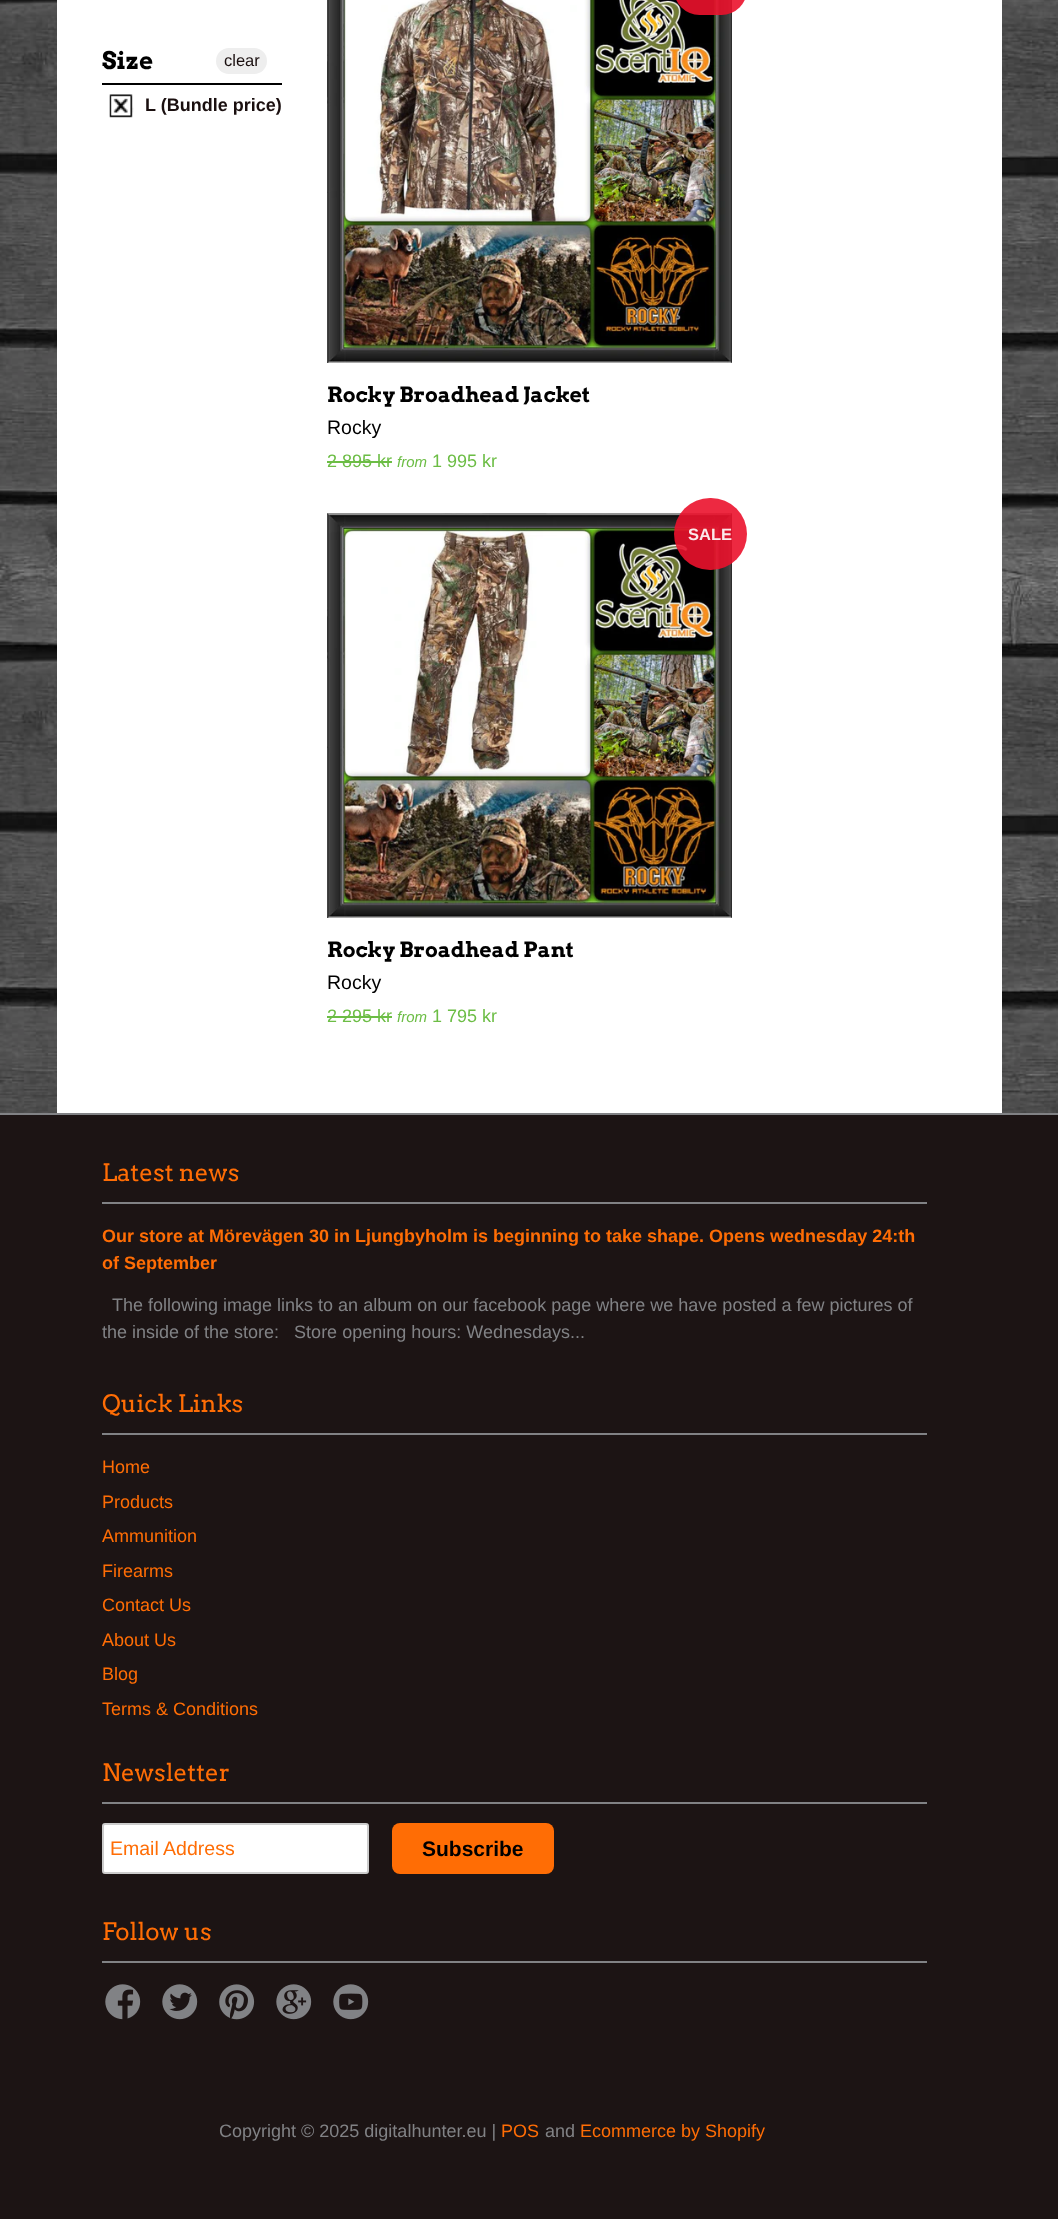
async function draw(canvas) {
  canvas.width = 1058
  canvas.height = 2219
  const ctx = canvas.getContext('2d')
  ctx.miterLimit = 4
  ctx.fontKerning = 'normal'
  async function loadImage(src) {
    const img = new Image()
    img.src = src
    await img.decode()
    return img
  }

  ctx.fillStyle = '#fff'
  ctx.fillRect(0, 0, 1058, 2219)
  ctx.drawImage(await loadImage('image0.png'), 0, 0, 1058, 1113)
  ctx.fillRect(57, 0, 945, 1113)
  ctx.fillStyle = '#000'
  ctx.fillRect(102, 83, 180, 2)
  ctx.font = 'bold 24px Arvo'
  ctx.fillText('Size', 102, 69)
  ctx.fillStyle = '#eee'
  ctx.beginPath()
  ctx.roundRect(216, 48, 51, 26, 13)
  ctx.fill()
  ctx.font = '16.5px Liberation Sans'
  ctx.fillStyle = '#1a0f0f'
  ctx.fillText('clear', 224, 66)
  ctx.drawImage(await loadImage('image1.png'), 109, 94, 25, 24)
  ctx.font = 'bold 18px Liberation Sans'
  ctx.fillText('L (Bundle price)', 145, 111)
  ctx.drawImage(await loadImage('image2.png'), 327, 0, 405, 363)
  ctx.fillStyle = '#eb122ce6'
  ctx.beginPath()
  ctx.roundRect(674, -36, 73, 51, 36)
  ctx.fill()
  ctx.font = 'bold 21px Arvo'
  ctx.fillStyle = '#000'
  ctx.fillText('Rocky Broadhead Jacket', 327, 402)
  ctx.font = '19.5px Liberation Sans'
  ctx.fillText('Rocky', 327, 434)
  ctx.font = '18px Liberation Sans'
  ctx.fillStyle = '#6cbd45'
  ctx.fillText('2 895 kr', 327, 467)
  ctx.fillRect(327, 461, 65, 2)
  ctx.font = 'italic 15px Liberation Sans'
  ctx.fillText('from', 397, 467)
  ctx.font = '18px Liberation Sans'
  ctx.fillText('1 995 kr', 432, 467)
  ctx.drawImage(await loadImage('image3.png'), 327, 513, 405, 405)
  ctx.fillStyle = '#eb122ce6'
  ctx.beginPath()
  ctx.roundRect(674, 498, 73, 72, 36)
  ctx.fill()
  ctx.font = 'bold 16.5px Liberation Sans'
  ctx.fillStyle = '#fbe8ea'
  ctx.fillText('SALE', 688, 540)
  ctx.font = 'bold 21px Arvo'
  ctx.fillStyle = '#000'
  ctx.fillText('Rocky Broadhead Pant', 327, 957)
  ctx.font = '19.5px Liberation Sans'
  ctx.fillText('Rocky', 327, 989)
  ctx.font = '18px Liberation Sans'
  ctx.fillStyle = '#6cbd45'
  ctx.fillText('2 295 kr', 327, 1022)
  ctx.fillRect(327, 1016, 65, 2)
  ctx.font = 'italic 15px Liberation Sans'
  ctx.fillText('from', 397, 1022)
  ctx.font = '18px Liberation Sans'
  ctx.fillText('1 795 kr', 432, 1022)
  ctx.fillStyle = '#1c1414'
  ctx.fillRect(0, 1115, 1058, 1104)
  ctx.fillStyle = '#818285'
  ctx.fillRect(0, 1113, 1058, 2)
  ctx.fillRect(102, 1202, 825, 2)
  ctx.font = '24px Arvo'
  ctx.fillStyle = '#ff6d05'
  ctx.fillText('Latest news', 102, 1181)
  ctx.font = 'bold 18px Liberation Sans'
  ctx.fillText('Our store at Mörevägen 30 in Ljungbyholm is beginning to take shape. Opens wednesday 24:th', 102, 1242)
  ctx.fillText('of September', 102, 1269)
  ctx.font = '18px Liberation Sans'
  ctx.fillStyle = '#818285'
  ctx.fillText('The following image links to an album on our facebook page where we have posted a few pictures of', 112, 1311)
  ctx.fillText('the inside of the store:   Store opening hours: Wednesdays...', 102, 1338)
  ctx.fillRect(102, 1433, 825, 2)
  ctx.font = '24px Arvo'
  ctx.fillStyle = '#ff6d05'
  ctx.fillText('Quick Links', 102, 1412)
  ctx.font = '18px Liberation Sans'
  ctx.fillText('Home', 102, 1473)
  ctx.fillText('Products', 102, 1508)
  ctx.fillText('Ammunition', 102, 1542)
  ctx.fillText('Firearms', 102, 1577)
  ctx.fillText('Contact Us', 102, 1611)
  ctx.fillText('About Us', 102, 1646)
  ctx.fillText('Blog', 102, 1680)
  ctx.fillText('Terms & Conditions', 102, 1715)
  ctx.fillStyle = '#818285'
  ctx.fillRect(102, 1802, 825, 2)
  ctx.font = '24px Arvo'
  ctx.fillStyle = '#ff6d05'
  ctx.fillText('Newsletter', 102, 1781)
  ctx.fillStyle = '#fff'
  ctx.beginPath()
  ctx.roundRect(103, 1824, 265, 49, 2)
  ctx.fill()
  ctx.strokeStyle = '#ccc'
  ctx.lineWidth = 2
  ctx.stroke()
  ctx.font = '19.5px Liberation Sans'
  ctx.fillStyle = '#ff6d05'
  ctx.fillText('Email Address', 110, 1855)
  ctx.beginPath()
  ctx.roundRect(392, 1823, 162, 51, 8)
  ctx.fill()
  ctx.font = 'bold 21px Liberation Sans'
  ctx.fillStyle = '#000'
  ctx.fillText('Subscribe', 422, 1856)
  ctx.fillStyle = '#818285'
  ctx.fillRect(102, 1961, 825, 2)
  ctx.font = '24px Arvo'
  ctx.fillStyle = '#ff6d05'
  ctx.fillText('Follow us', 102, 1940)
  ctx.drawImage(await loadImage('image4.png'), 105, 1984, 36, 36)
  ctx.drawImage(await loadImage('image5.png'), 162, 1984, 36, 36)
  ctx.drawImage(await loadImage('image6.png'), 219, 1984, 36, 36)
  ctx.drawImage(await loadImage('image7.png'), 276, 1984, 36, 36)
  ctx.drawImage(await loadImage('image8.png'), 333, 1984, 36, 36)
  ctx.font = '18px Liberation Sans'
  ctx.fillStyle = '#818285'
  ctx.fillText('Copyright © 2025 digitalhunter.eu |', 219, 2137)
  ctx.fillStyle = '#ff6d05'
  ctx.fillText('POS', 501, 2137)
  ctx.fillStyle = '#818285'
  ctx.fillText('and', 545, 2137)
  ctx.fillStyle = '#ff6d05'
  ctx.fillText('Ecommerce by Shopify', 580, 2137)
}

draw(document.querySelector('canvas'))
